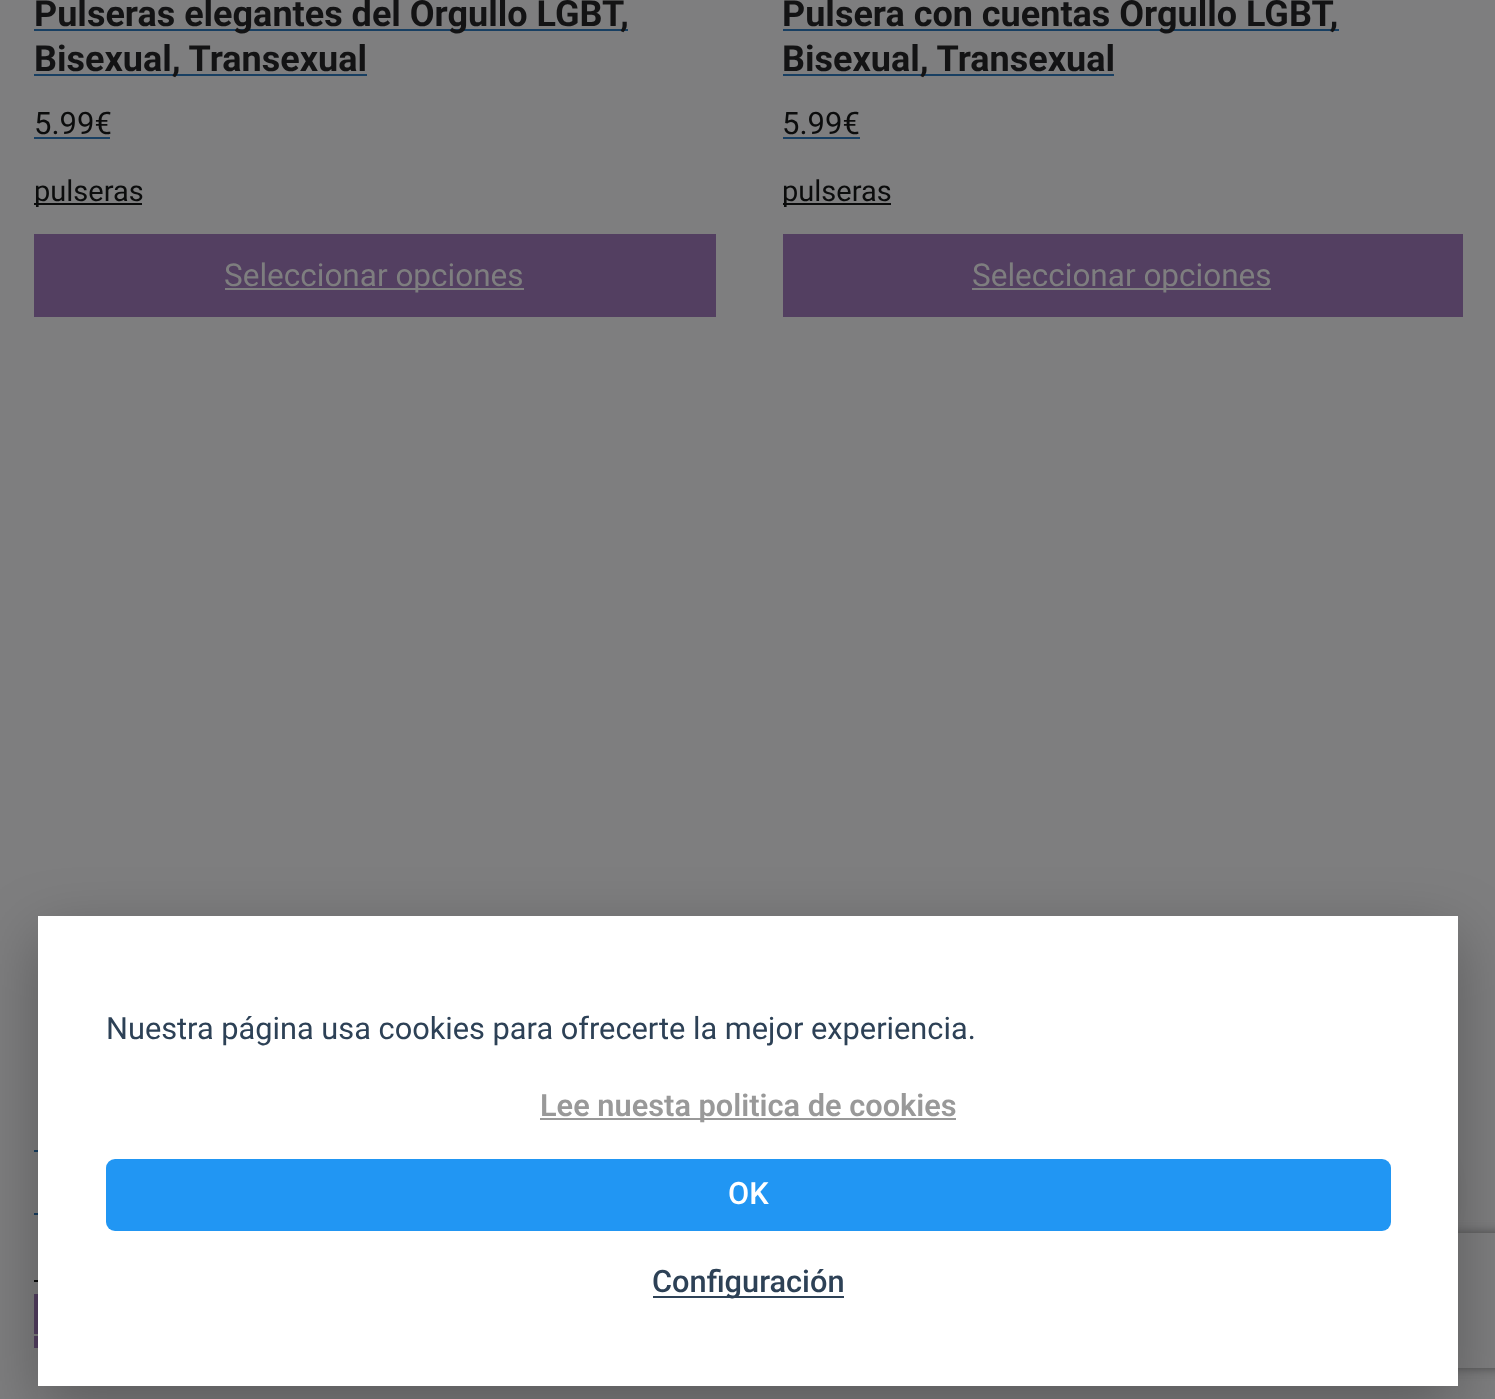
async function draw(canvas) {
  canvas.width = 1495
  canvas.height = 1399
  const ctx = canvas.getContext('2d')
  ctx.miterLimit = 4
  ctx.fontKerning = 'normal'

  ctx.fillStyle = '#7e7e7f'
  ctx.fillRect(0, 0, 1495, 1399)
  ctx.fillStyle = '#183f62'
  ctx.fillRect(34, 29, 594, 2)
  ctx.font = 'bold 36px Roboto'
  ctx.fillStyle = '#131314'
  ctx.fillText('Pulseras elegantes del Orgullo LGBT,', 34, 26)
  ctx.fillStyle = '#183f62'
  ctx.fillRect(34, 74, 333, 2)
  ctx.fillStyle = '#131314'
  ctx.fillText('Bisexual, Transexual', 34, 71)
  ctx.font = '31px Roboto'
  ctx.fillStyle = '#0b0c0c'
  ctx.fillText('5.99€', 34, 134)
  ctx.fillStyle = '#183f62'
  ctx.fillRect(34, 137, 76, 2)
  ctx.fillStyle = '#0b0c0c'
  ctx.fillRect(34, 203, 108, 2)
  ctx.font = '29px Roboto'
  ctx.fillText('pulseras', 34, 201)
  ctx.fillStyle = '#533f61'
  ctx.fillRect(34, 234, 682, 83)
  ctx.fillStyle = '#7e7e7f'
  ctx.fillRect(225, 288, 299, 2)
  ctx.font = '31.5px Roboto'
  ctx.fillText('Seleccionar opciones', 224, 286)
  ctx.fillStyle = '#183f62'
  ctx.fillRect(783, 29, 556, 2)
  ctx.font = 'bold 36px Roboto'
  ctx.fillStyle = '#131314'
  ctx.fillText('Pulsera con cuentas Orgullo LGBT,', 782, 26)
  ctx.fillStyle = '#183f62'
  ctx.fillRect(783, 74, 331, 2)
  ctx.fillStyle = '#131314'
  ctx.fillText('Bisexual, Transexual', 782, 71)
  ctx.font = '31px Roboto'
  ctx.fillStyle = '#0b0c0c'
  ctx.fillText('5.99€', 782, 134)
  ctx.fillStyle = '#183f62'
  ctx.fillRect(783, 137, 77, 2)
  ctx.fillStyle = '#0b0c0c'
  ctx.fillRect(783, 203, 108, 2)
  ctx.font = '29px Roboto'
  ctx.fillText('pulseras', 782, 201)
  ctx.fillStyle = '#533f61'
  ctx.fillRect(783, 234, 680, 83)
  ctx.fillStyle = '#7e7e7f'
  ctx.fillRect(972, 288, 299, 2)
  ctx.font = '31.5px Roboto'
  ctx.fillText('Seleccionar opciones', 972, 286)
  ctx.fillStyle = '#183f62'
  ctx.fillRect(34, 1150, 4, 2)
  ctx.fillRect(34, 1213, 4, 2)
  ctx.fillStyle = '#0b0c0c'
  ctx.fillRect(34, 1280, 4, 2)
  ctx.fillStyle = '#533f61'
  ctx.fillRect(34, 1294, 4, 54)
  ctx.fillStyle = '#7e7e7f'
  ctx.fillRect(34, 1334, 4, 2)
  ctx.fillStyle = '#02020347'
  ctx.filter = 'blur(32px)'
  ctx.beginPath()
  ctx.rect(38, 936, 1420, 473)
  ctx.fill()
  ctx.filter = 'none'
  ctx.fillStyle = '#0b0c0c80'
  ctx.filter = 'blur(11px)'
  ctx.beginPath()
  ctx.roundRect(1298, 1123, 144, 144, 72)
  ctx.fill()
  ctx.filter = 'none'
  ctx.save()
  ctx.beginPath()
  ctx.moveTo(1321, 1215)
  ctx.lineTo(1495, 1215)
  ctx.lineTo(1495, 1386)
  ctx.lineTo(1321, 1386)
  ctx.closePath()
  ctx.moveTo(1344, 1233)
  ctx.lineTo(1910, 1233)
  ctx.bezierCurveTo(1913, 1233, 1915, 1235, 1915, 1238)
  ctx.lineTo(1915, 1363)
  ctx.bezierCurveTo(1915, 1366, 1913, 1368, 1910, 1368)
  ctx.lineTo(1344, 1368)
  ctx.bezierCurveTo(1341, 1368, 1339, 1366, 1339, 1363)
  ctx.lineTo(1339, 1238)
  ctx.bezierCurveTo(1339, 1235, 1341, 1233, 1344, 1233)
  ctx.closePath()
  ctx.clip('evenodd')
  ctx.fillStyle = '#454546'
  ctx.filter = 'blur(5.5px)'
  ctx.beginPath()
  ctx.roundRect(1339, 1233, 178, 135, 5)
  ctx.fill()
  ctx.filter = 'none'
  ctx.restore()
  ctx.fillStyle = '#fff'
  ctx.fillRect(38, 916, 1420, 470)
  ctx.font = '30.75px Roboto'
  ctx.fillStyle = '#2d4156'
  ctx.fillText('Nuestra página usa cookies para ofrecerte la mejor experiencia.', 106, 1039)
  ctx.fillStyle = '#999'
  ctx.fillRect(540, 1118, 416, 2)
  ctx.font = '600 30.75px Roboto'
  ctx.fillText('Lee nuesta politica de cookies', 540, 1116)
  ctx.fillStyle = '#2196f3'
  ctx.beginPath()
  ctx.roundRect(106, 1159, 1285, 72, 9)
  ctx.fill()
  ctx.font = '500 30.75px Roboto'
  ctx.fillStyle = '#fff'
  ctx.fillText('OK', 728, 1204)
  ctx.fillStyle = '#2d4156'
  ctx.fillRect(653, 1296, 191, 2)
  ctx.fillText('Configuración', 652, 1292)
}

draw(document.querySelector('canvas'))
